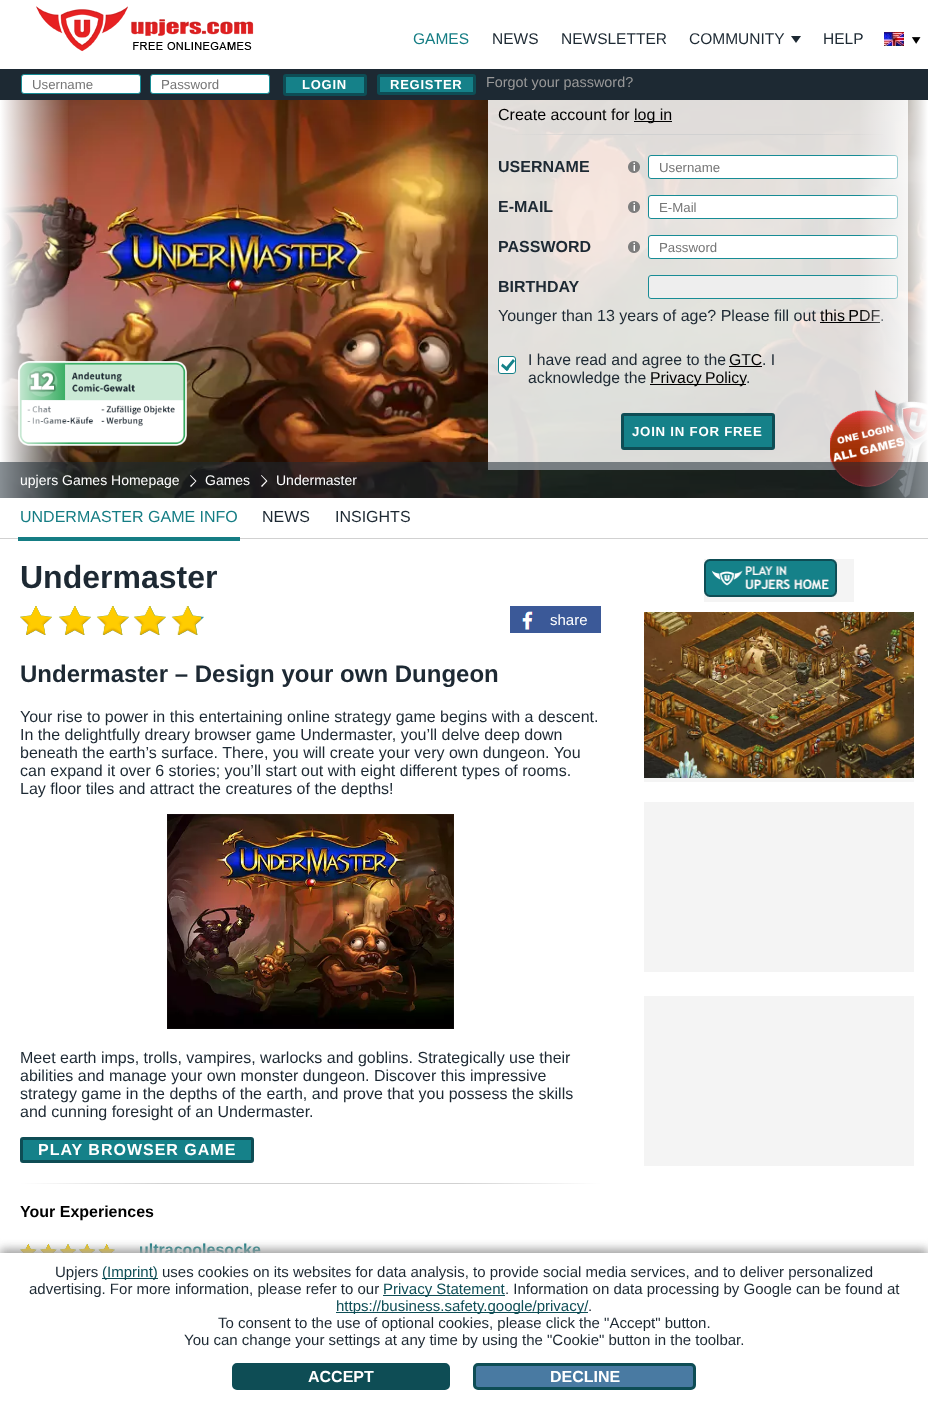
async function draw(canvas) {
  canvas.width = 928
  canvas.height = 1405
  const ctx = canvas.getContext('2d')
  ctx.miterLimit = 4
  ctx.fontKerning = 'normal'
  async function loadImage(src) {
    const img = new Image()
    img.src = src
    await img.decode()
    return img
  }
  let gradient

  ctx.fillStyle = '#fff'
  ctx.fillRect(0, 0, 928, 1405)
  ctx.drawImage(await loadImage('image0.png'), 36, 6, 218, 46)
  ctx.font = '15.5px Liberation Sans'
  ctx.fillStyle = '#157d84'
  ctx.fillText('GAMES', 413, 44)
  ctx.fillStyle = '#1d2933'
  ctx.fillText('NEWS', 492, 44)
  ctx.fillText('NEWSLETTER', 561, 44)
  ctx.fillText('COMMUNITY', 689, 44)
  ctx.beginPath()
  ctx.moveTo(791, 36)
  ctx.lineTo(801, 36)
  ctx.lineTo(796, 43)
  ctx.closePath()
  ctx.fill()
  ctx.fillText('HELP', 823, 44)
  ctx.drawImage(await loadImage('image1.png'), 884, 32, 20, 14)
  ctx.drawImage(await loadImage('image2.png'), 911, 37, 10, 7)
  ctx.fillRect(0, 69, 928, 31)
  ctx.fillStyle = '#fff'
  ctx.beginPath()
  ctx.roundRect(21.5, 74.5, 119, 19, 2.5)
  ctx.fill()
  ctx.strokeStyle = '#178c95'
  ctx.stroke()
  ctx.font = '13.25px Liberation Sans'
  ctx.fillStyle = '#757575'
  ctx.fillText('Username', 32, 89)
  ctx.fillStyle = '#fff'
  ctx.beginPath()
  ctx.roundRect(150.5, 74.5, 119, 19, 2.5)
  ctx.fill()
  ctx.stroke()
  ctx.fillStyle = '#757575'
  ctx.fillText('Password', 161, 89)
  ctx.fillStyle = '#158189'
  ctx.beginPath()
  ctx.roundRect(284.5, 75.5, 81, 19, 1.5)
  ctx.fill()
  ctx.strokeStyle = '#0e4d55'
  ctx.lineWidth = 3
  ctx.stroke()
  ctx.letterSpacing = '0.75px'
  ctx.font = 'bold 13px Liberation Sans'
  ctx.fillStyle = '#fff'
  ctx.fillText('LOGIN', 302, 89)
  ctx.fillStyle = '#158189'
  ctx.beginPath()
  ctx.roundRect(378.5, 75.5, 96, 18, 1.5)
  ctx.fill()
  ctx.stroke()
  ctx.fillStyle = '#fff'
  ctx.fillText('REGISTER', 390, 89)
  ctx.letterSpacing = '0px'
  ctx.font = '14.4px Liberation Sans'
  ctx.fillStyle = '#999'
  ctx.fillText('Forgot your password?', 486, 87)
  ctx.drawImage(await loadImage('image3.png'), 0, 100, 928, 398)
  ctx.drawImage(await loadImage('image4.png'), 18, 361, 169, 85)
  gradient = ctx.createLinearGradient(0, 293, 70, 293)
  gradient.addColorStop(0, '#fff')
  gradient.addColorStop(1, '#ffffff00')
  ctx.fillStyle = gradient
  ctx.fillRect(0, 100, 68, 398)
  ctx.fillStyle = '#ffffffd9'
  ctx.fillRect(488, 100, 420, 370)
  gradient = ctx.createLinearGradient(498, 135, 898, 135)
  gradient.addColorStop(0, '#d1d1d100')
  gradient.addColorStop(0.25, '#d1d1d1')
  gradient.addColorStop(0.75, '#d1d1d1')
  gradient.addColorStop(1, '#d1d1d100')
  ctx.fillStyle = gradient
  ctx.fillRect(512, 134, 371, 1)
  ctx.fillStyle = '#fff'
  ctx.beginPath()
  ctx.roundRect(648.5, 155.5, 249, 23, 2.5)
  ctx.fill()
  ctx.strokeStyle = '#178c95'
  ctx.lineWidth = 1
  ctx.stroke()
  ctx.beginPath()
  ctx.roundRect(648.5, 195.5, 249, 23, 2.5)
  ctx.fill()
  ctx.stroke()
  ctx.beginPath()
  ctx.roundRect(648.5, 235.5, 249, 23, 2.5)
  ctx.fill()
  ctx.stroke()
  ctx.fillStyle = '#eee'
  ctx.beginPath()
  ctx.roundRect(648.5, 275.5, 249, 23, 2.5)
  ctx.fill()
  ctx.stroke()
  ctx.wordSpacing = '-1px'
  ctx.font = '16px Liberation Sans'
  ctx.fillStyle = '#000'
  ctx.fillText('this PDF', 820, 321)
  ctx.fillRect(820, 322, 60, 1)
  ctx.wordSpacing = '0px'
  ctx.fillStyle = '#1d2933'
  ctx.fillText('.', 880, 321)
  ctx.drawImage(await loadImage('image8.png'), 830, 389, 98, 109)
  gradient = ctx.createLinearGradient(928, 293, 858, 293)
  gradient.addColorStop(0, '#fff')
  gradient.addColorStop(1, '#ffffff00')
  ctx.fillStyle = gradient
  ctx.fillRect(860, 100, 68, 398)
  ctx.fillStyle = '#000'
  ctx.fillText('Create account for', 498, 120)
  ctx.fillRect(634, 121, 38, 1)
  ctx.fillText('log in', 634, 120)
  ctx.drawImage(await loadImage('image5.png'), 628, 161, 12, 12)
  ctx.font = 'bold 16px Liberation Sans'
  ctx.fillStyle = '#1d2933'
  ctx.fillText('USERNAME', 498, 172)
  ctx.font = '13.25px Liberation Sans'
  ctx.fillStyle = '#757575'
  ctx.fillText('Username', 659, 172)
  ctx.drawImage(await loadImage('image6.png'), 628, 201, 12, 12)
  ctx.font = 'bold 16px Liberation Sans'
  ctx.fillStyle = '#1d2933'
  ctx.fillText('E-MAIL', 498, 212)
  ctx.font = '13.25px Liberation Sans'
  ctx.fillStyle = '#757575'
  ctx.fillText('E-Mail', 659, 212)
  ctx.drawImage(await loadImage('image7.png'), 628, 241, 12, 12)
  ctx.font = 'bold 16px Liberation Sans'
  ctx.fillStyle = '#1d2933'
  ctx.fillText('PASSWORD', 498, 252)
  ctx.font = '13.25px Liberation Sans'
  ctx.fillStyle = '#757575'
  ctx.fillText('Password', 659, 252)
  ctx.font = 'bold 16px Liberation Sans'
  ctx.fillStyle = '#1d2933'
  ctx.fillText('BIRTHDAY', 498, 292)
  ctx.font = '16px Liberation Sans'
  ctx.fillText('Younger than 13 years of age? Please fill out', 498, 321)
  ctx.fillStyle = '#fff'
  ctx.beginPath()
  ctx.roundRect(498.5, 356.5, 17, 17, 2.5)
  ctx.fill()
  ctx.strokeStyle = '#158189'
  ctx.stroke()
  ctx.fillStyle = '#158189'
  ctx.beginPath()
  ctx.moveTo(513, 359)
  ctx.lineTo(515, 361)
  ctx.lineTo(507, 371)
  ctx.lineTo(504.5, 369)
  ctx.closePath()
  ctx.fill()
  ctx.beginPath()
  ctx.moveTo(502.5, 363.5)
  ctx.lineTo(509, 369)
  ctx.lineTo(507, 371)
  ctx.lineTo(501, 366)
  ctx.closePath()
  ctx.fill()
  ctx.font = '15.75px Liberation Sans'
  ctx.fillStyle = '#1d2933'
  ctx.fillText('I have read and agree to the', 528, 365)
  ctx.fillStyle = '#000'
  ctx.fillText('GTC', 729, 365)
  ctx.fillRect(729, 366, 33, 1)
  ctx.fillStyle = '#1d2933'
  ctx.fillText('. I', 762, 365)
  ctx.fillText('acknowledge the', 528, 383)
  ctx.fillStyle = '#000'
  ctx.fillRect(650, 384, 96, 1)
  ctx.wordSpacing = '-1px'
  ctx.fillText('Privacy Policy', 650, 383)
  ctx.wordSpacing = '0px'
  ctx.fillStyle = '#1d2933'
  ctx.fillText('.', 746, 383)
  ctx.fillStyle = '#158189'
  ctx.beginPath()
  ctx.roundRect(622.5, 414.5, 151, 34, 1.5)
  ctx.fill()
  ctx.strokeStyle = '#0e4d55'
  ctx.lineWidth = 3
  ctx.stroke()
  ctx.letterSpacing = '0.75px'
  ctx.font = 'bold 13.25px Liberation Sans'
  ctx.fillStyle = '#fff'
  ctx.fillText('JOIN IN FOR FREE', 632, 436)
  ctx.fillStyle = '#1d293387'
  ctx.fillRect(0, 462, 928, 36)
  ctx.letterSpacing = '0px'
  ctx.font = '14px Liberation Sans'
  ctx.fillStyle = '#fff'
  ctx.fillText('upjers Games Homepage', 20, 485)
  ctx.beginPath()
  ctx.moveTo(190.5, 475)
  ctx.lineTo(196, 480.5)
  ctx.lineTo(195.5, 481.5)
  ctx.lineTo(190, 475.5)
  ctx.closePath()
  ctx.fill()
  ctx.beginPath()
  ctx.moveTo(196.5, 481)
  ctx.lineTo(191, 487)
  ctx.lineTo(190, 486)
  ctx.lineTo(196, 480.5)
  ctx.closePath()
  ctx.fill()
  ctx.fillText('Games', 205, 485)
  ctx.beginPath()
  ctx.moveTo(261.5, 475)
  ctx.lineTo(267, 480.5)
  ctx.lineTo(266.5, 481.5)
  ctx.lineTo(261, 475.5)
  ctx.closePath()
  ctx.fill()
  ctx.beginPath()
  ctx.moveTo(267.5, 481)
  ctx.lineTo(262, 487)
  ctx.lineTo(261, 486)
  ctx.lineTo(266.5, 480.5)
  ctx.closePath()
  ctx.fill()
  ctx.fillText('Undermaster', 276, 485)
  ctx.fillStyle = '#d1d1d1'
  ctx.fillRect(0, 538, 928, 1)
  ctx.font = '16px Liberation Sans'
  ctx.fillStyle = '#157d84'
  ctx.fillText('UNDERMASTER GAME INFO', 20, 522)
  ctx.fillStyle = '#1d2933'
  ctx.fillText('NEWS', 262, 522)
  ctx.fillText('INSIGHTS', 335, 522)
  ctx.fillStyle = '#157d84'
  ctx.fillRect(18, 537, 222, 4)
  ctx.font = 'bold 32px Liberation Sans'
  ctx.fillStyle = '#1d2933'
  ctx.fillText('Undermaster', 20, 588)
  ctx.drawImage(await loadImage('image9.png'), 20, 606, 184, 29)
  ctx.drawImage(await loadImage('image10.png'), 20, 606, 181, 29)
  ctx.fillStyle = '#3b5998'
  ctx.fillRect(510, 606, 91, 27)
  ctx.drawImage(await loadImage('image11.png'), 522, 611, 11, 19)
  ctx.font = '15px Liberation Sans'
  ctx.fillStyle = '#fff'
  ctx.fillText('share', 550, 625)
  ctx.font = 'bold 24px Liberation Sans'
  ctx.fillStyle = '#1d2933'
  ctx.fillText('Undermaster – Design your own Dungeon', 20, 682)
  ctx.font = '16px Liberation Sans'
  ctx.fillText('Your rise to power in this entertaining online strategy game begins with a descent.', 20, 722)
  ctx.fillText('In the delightfully dreary browser game Undermaster, you’ll delve deep down', 20, 740)
  ctx.fillText('beneath the earth’s surface. There, you will create your very own dungeon. You', 20, 758)
  ctx.fillText('can expand it over 6 stories; you’ll start out with eight different types of rooms.', 20, 776)
  ctx.fillText('Lay floor tiles and attract the creatures of the depths!', 20, 794)
  ctx.drawImage(await loadImage('image12.png'), 167, 814, 287, 215)
  ctx.fillText('Meet earth imps, trolls, vampires, warlocks and goblins. Strategically use their', 20, 1063)
  ctx.fillText('abilities and manage your own monster dungeon. Discover this impressive', 20, 1081)
  ctx.fillText('strategy game in the depths of the earth, and prove that you possess the skills', 20, 1099)
  ctx.fillText('and cunning foresight of an Undermaster.', 20, 1117)
  ctx.fillStyle = '#158189'
  ctx.beginPath()
  ctx.roundRect(21.5, 1138.5, 231, 23, 1.5)
  ctx.fill()
  ctx.stroke()
  ctx.letterSpacing = '1px'
  ctx.font = 'bold 16px Liberation Sans'
  ctx.fillStyle = '#fff'
  ctx.fillText('PLAY BROWSER GAME', 38, 1155)
  gradient = ctx.createLinearGradient(20, 1184, 601, 1184)
  gradient.addColorStop(0, '#fff')
  gradient.addColorStop(0.25, '#d1d1d1')
  gradient.addColorStop(0.75, '#d1d1d1')
  gradient.addColorStop(1, '#fff')
  ctx.fillStyle = gradient
  ctx.fillRect(20, 1183, 581, 1)
  ctx.letterSpacing = '0px'
  ctx.fillStyle = '#000'
  ctx.fillText('Your Experiences', 20, 1217)
  ctx.drawImage(await loadImage('image13.png'), 20, 1244, 95, 9)
  ctx.drawImage(await loadImage('image14.png'), 20, 1244, 95, 9)
  ctx.fillStyle = '#157d84'
  ctx.fillText('ultracoolesocke', 139, 1255)
  ctx.fillStyle = '#f4f4f4'
  ctx.fillRect(704, 559, 150, 43)
  ctx.drawImage(await loadImage('image15.png'), 704, 559, 133, 38)
  ctx.fillRect(644, 778, 270, 4)
  ctx.drawImage(await loadImage('image16.png'), 644, 612, 270, 166)
  ctx.fillRect(644, 802, 270, 170)
  ctx.fillRect(644, 996, 270, 170)
  ctx.fillStyle = '#a1a1a1'
  ctx.filter = 'blur(5px)'
  ctx.beginPath()
  ctx.rect(0, 1249, 928, 152)
  ctx.fill()
  ctx.filter = 'none'
  ctx.fillStyle = '#fff'
  ctx.fillRect(0, 1253, 928, 152)
  ctx.font = '15px Liberation Sans'
  ctx.fillStyle = '#1d2933'
  ctx.fillText('Upjers', 55, 1277)
  ctx.fillStyle = '#0e4d55'
  ctx.fillRect(102, 1278, 56, 1)
  ctx.fillText('(Imprint)', 102, 1277)
  ctx.fillStyle = '#1d2933'
  ctx.fillText('uses cookies on its websites for data analysis, to provide social media services, and to deliver personalized', 162, 1277)
  ctx.fillText('advertising. For more information, please refer to our', 29, 1294)
  ctx.fillStyle = '#0e4d55'
  ctx.fillRect(383, 1295, 122, 1)
  ctx.fillText('Privacy Statement', 383, 1294)
  ctx.fillStyle = '#1d2933'
  ctx.fillText('. Information on data processing by Google can be found at', 505, 1294)
  ctx.fillStyle = '#0e4d55'
  ctx.fillRect(336, 1312, 252, 1)
  ctx.fillText('https://business.safety.google/privacy/', 336, 1311)
  ctx.fillStyle = '#1d2933'
  ctx.fillText('.', 588, 1311)
  ctx.fillText('To consent to the use of optional cookies, please click the "Accept" button.', 218, 1328)
  ctx.fillText('You can change your settings at any time by using the "Cookie" button in the toolbar.', 184, 1345)
  ctx.fillStyle = '#0e4d55'
  ctx.beginPath()
  ctx.roundRect(233.5, 1364.5, 215, 24, 3.5)
  ctx.fill()
  ctx.stroke()
  ctx.font = 'bold 16px Liberation Sans'
  ctx.fillStyle = '#fff'
  ctx.fillText('ACCEPT', 308, 1382)
  ctx.fillStyle = '#497aa2'
  ctx.beginPath()
  ctx.roundRect(474.5, 1364.5, 220, 24, 3.5)
  ctx.fill()
  ctx.stroke()
  ctx.fillStyle = '#fff'
  ctx.fillText('DECLINE', 550, 1382)
}

draw(document.querySelector('canvas'))
